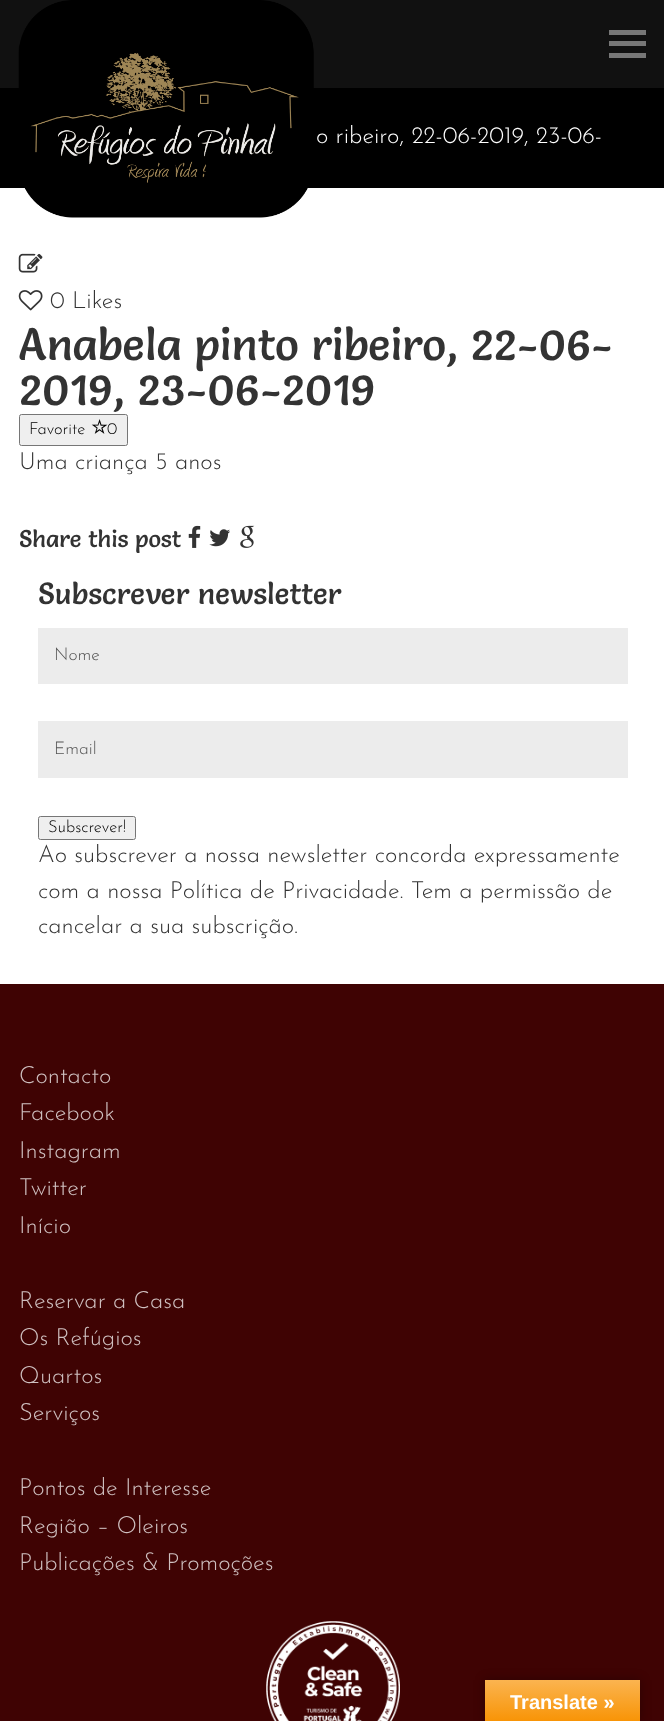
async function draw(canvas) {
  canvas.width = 664
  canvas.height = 1721
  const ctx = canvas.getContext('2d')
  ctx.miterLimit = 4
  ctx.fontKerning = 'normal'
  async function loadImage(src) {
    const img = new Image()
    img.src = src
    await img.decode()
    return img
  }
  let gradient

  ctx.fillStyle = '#fff'
  ctx.fillRect(0, 0, 664, 1721)
  ctx.fillStyle = '#111'
  ctx.fillRect(0, 0, 664, 88)
  ctx.fillStyle = '#000'
  ctx.fillRect(0, 88, 664, 100)
  ctx.drawImage(await loadImage('image0.png'), 18, 0, 296, 218)
  ctx.fillStyle = '#777'
  ctx.fillRect(609, 30, 37, 5)
  ctx.fillRect(609, 41, 37, 5)
  ctx.fillRect(609, 53, 37, 5)
  ctx.font = '100 23.75px Josefin Sans'
  ctx.fillStyle = '#fff'
  ctx.fillText('o ribeiro, 22-06-2019, 23-06-', 316, 143)
  ctx.drawImage(await loadImage('image1.png'), 18, 253, 25, 20)
  ctx.drawImage(await loadImage('image2.png'), 18, 290, 25, 21)
  ctx.fillStyle = '#333'
  ctx.fillText('0 Likes', 50, 308)
  ctx.font = '45px Salsa'
  ctx.fillText('Anabela pinto ribeiro, 22-06-', 19, 360)
  ctx.fillText('2019, 23-06-2019', 19, 405)
  ctx.fillStyle = '#efefef'
  ctx.beginPath()
  ctx.roundRect(19.5, 414.5, 108, 31, 2)
  ctx.fill()
  ctx.strokeStyle = '#767676'
  ctx.stroke()
  ctx.font = '100 16.5px Josefin Sans'
  ctx.fillStyle = '#000'
  ctx.fillText('Favorite', 29, 434)
  ctx.drawImage(await loadImage('image3.png'), 91, 419, 17, 15)
  ctx.fillText('0', 107, 434)
  ctx.font = '100 23.75px Josefin Sans'
  ctx.fillStyle = '#333'
  ctx.fillText('Uma criança 5 anos', 19, 469)
  ctx.font = '23.75px Salsa'
  ctx.fillText('Share this post', 19, 547)
  ctx.drawImage(await loadImage('image4.png'), 188, 525, 13, 23)
  ctx.drawImage(await loadImage('image5.png'), 209, 529, 21, 18)
  ctx.drawImage(await loadImage('image6.png'), 240, 525, 15, 23)
  ctx.font = '30px Salsa'
  ctx.fillText('Subscrever newsletter', 38, 604)
  ctx.fillStyle = '#ececec'
  ctx.fillRect(38, 628, 590, 56)
  ctx.font = '100 17.5px Josefin Sans'
  ctx.fillStyle = '#555'
  ctx.fillText('Nome', 54, 660)
  ctx.fillStyle = '#ececec'
  ctx.fillRect(38, 721, 590, 57)
  ctx.fillStyle = '#555'
  ctx.fillText('Email', 54, 754)
  ctx.fillStyle = '#efefef'
  ctx.beginPath()
  ctx.roundRect(38.5, 816.5, 97, 23, 2)
  ctx.fill()
  ctx.stroke()
  ctx.font = '100 16.5px Josefin Sans'
  ctx.fillStyle = '#000'
  ctx.fillText('Subscrever!', 48, 832)
  ctx.font = '100 23.75px Josefin Sans'
  ctx.fillStyle = '#333'
  ctx.fillText('Ao subscrever a nossa newsletter concorda expressamente', 38, 862)
  ctx.fillText('com a nossa Política de Privacidade. Tem a permissão de', 38, 898)
  ctx.fillText('cancelar a sua subscrição.', 38, 933)
  ctx.fillStyle = '#3f0303'
  ctx.fillRect(0, 984, 664, 737)
  ctx.fillStyle = '#cfc0c0'
  ctx.fillText('Contacto', 19, 1083)
  ctx.fillText('Facebook', 19, 1120)
  ctx.fillText('Instagram', 19, 1158)
  ctx.fillText('Twitter', 19, 1195)
  ctx.fillText('Início', 19, 1233)
  ctx.fillText('Reservar a Casa', 19, 1308)
  ctx.fillText('Os Refúgios', 19, 1345)
  ctx.fillText('Quartos', 19, 1383)
  ctx.fillText('Serviços', 19, 1420)
  ctx.fillText('Pontos de Interesse', 19, 1495)
  ctx.fillText('Região – Oleiros', 19, 1533)
  ctx.fillText('Publicações & Promoções', 19, 1570)
  ctx.drawImage(await loadImage('image7.png'), 266, 1621, 134, 100)
  ctx.fillStyle = '#0000004d'
  ctx.filter = 'blur(5.5px)'
  ctx.beginPath()
  ctx.rect(485, 1680, 155, 41)
  ctx.fill()
  ctx.filter = 'none'
  gradient = ctx.createLinearGradient(563, 1680, 563, 1721)
  gradient.addColorStop(0, '#fbb450')
  gradient.addColorStop(1, '#f89406')
  ctx.fillStyle = gradient
  ctx.fillRect(485, 1680, 155, 41)
  ctx.font = 'bold 20px Liberation Sans'
  ctx.fillStyle = '#fff'
  ctx.fillText('Translate »', 510, 1709)
}

draw(document.querySelector('canvas'))
